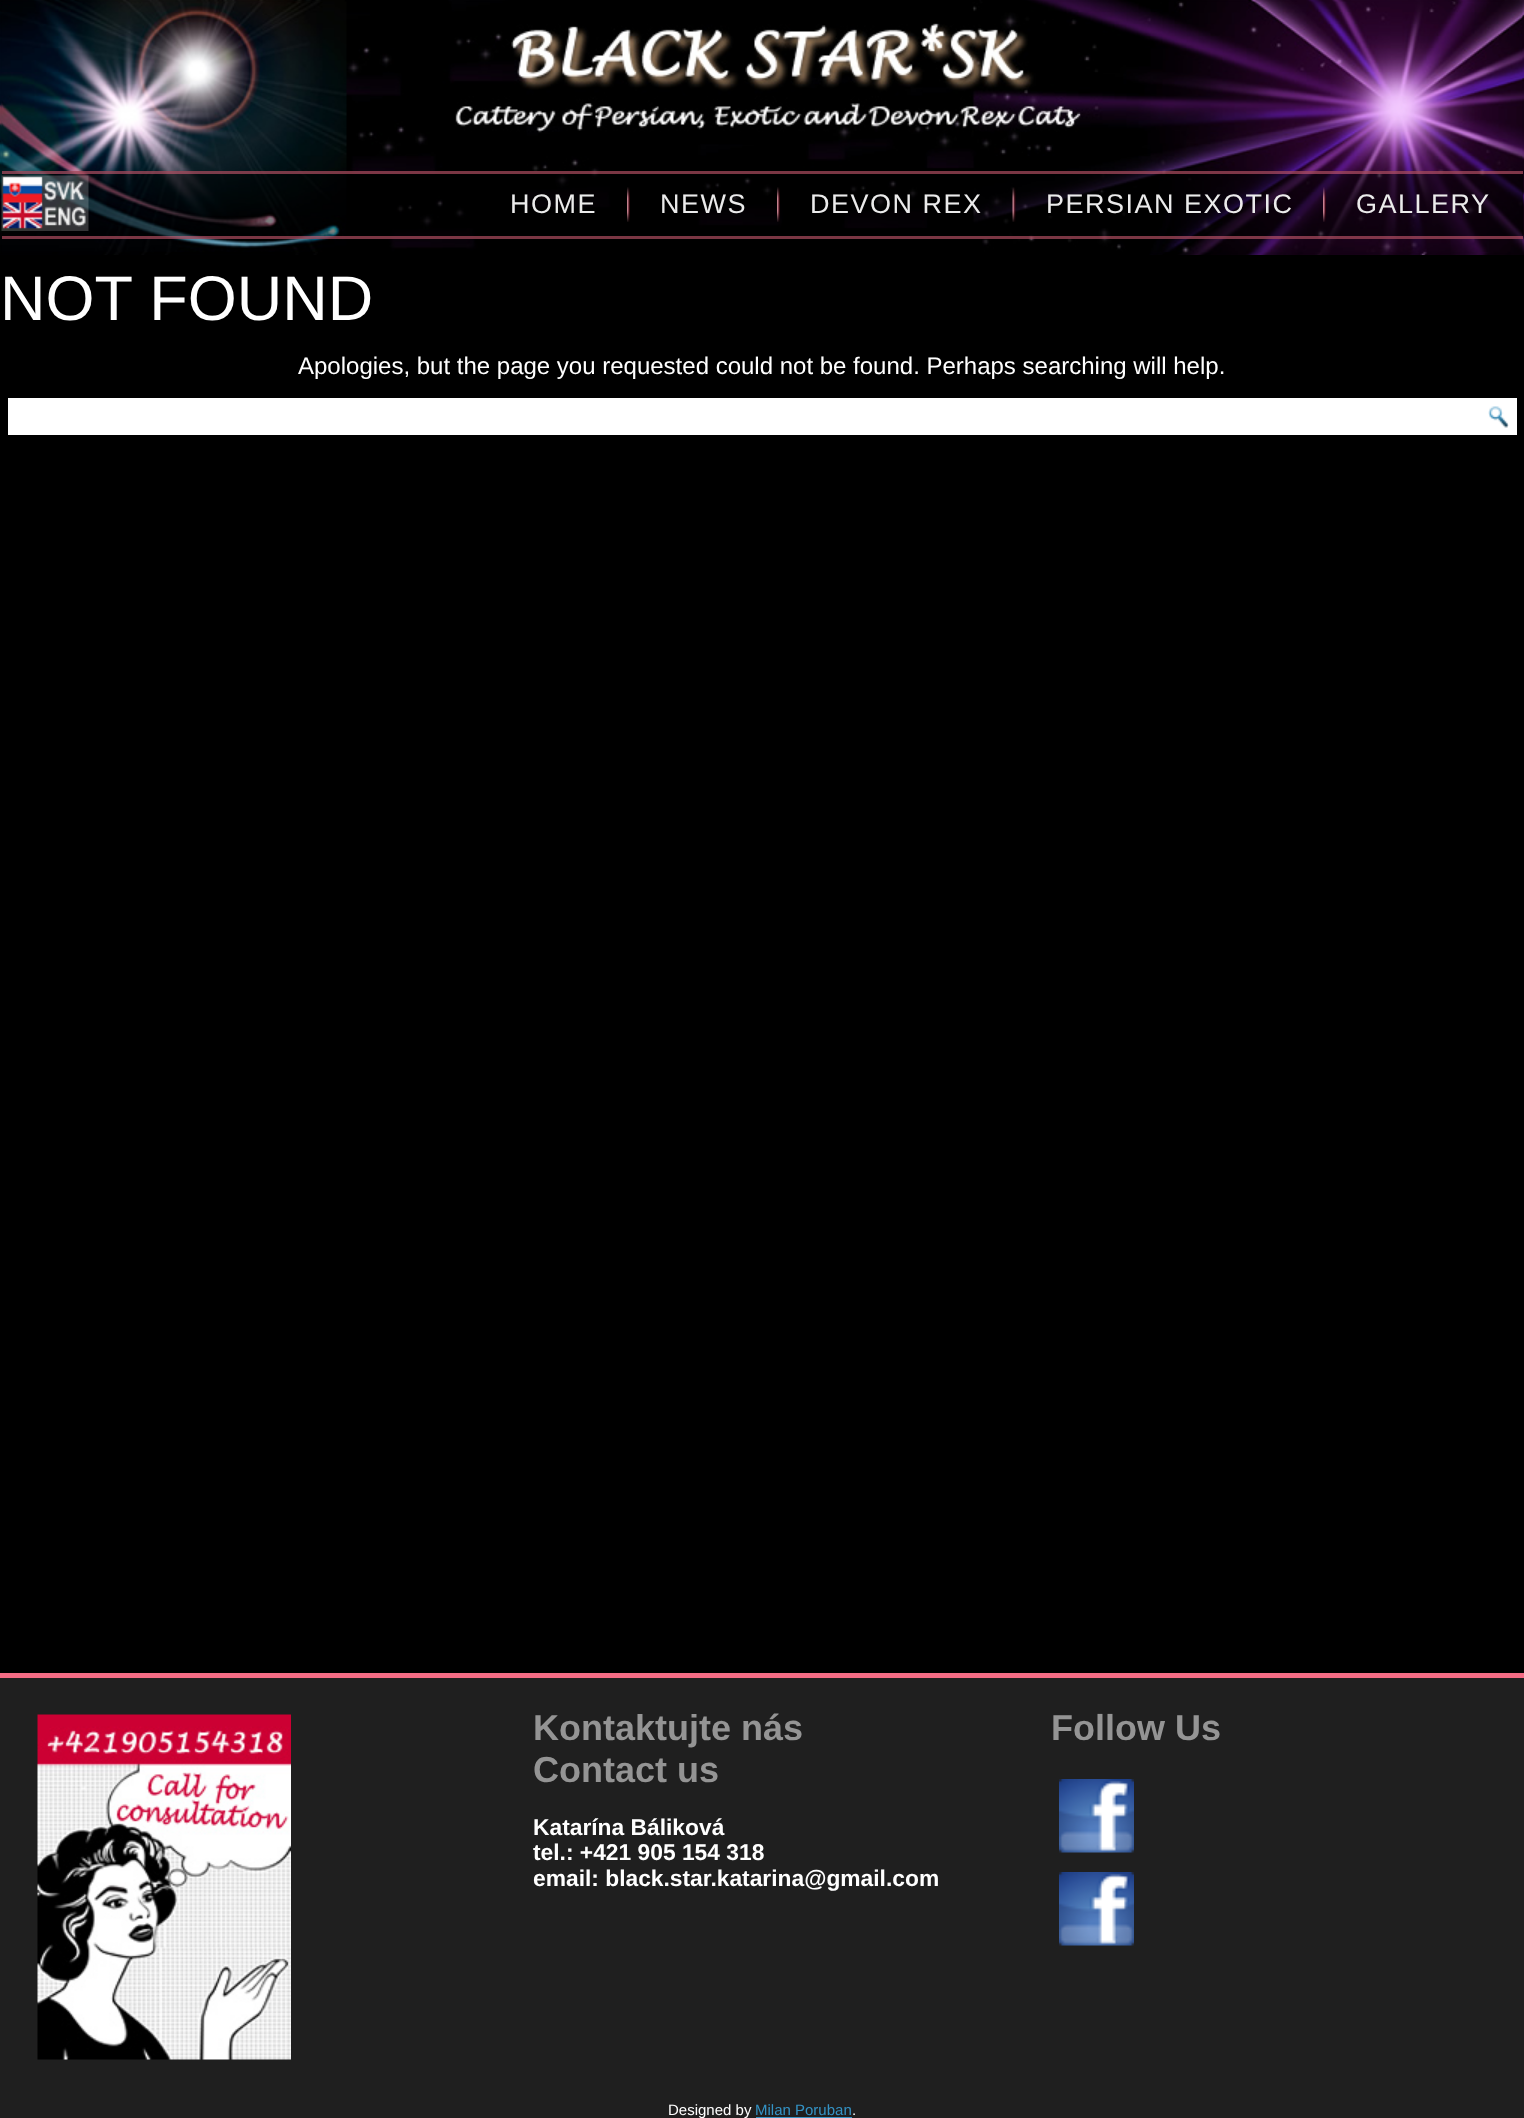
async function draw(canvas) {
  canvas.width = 1524
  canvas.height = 2118
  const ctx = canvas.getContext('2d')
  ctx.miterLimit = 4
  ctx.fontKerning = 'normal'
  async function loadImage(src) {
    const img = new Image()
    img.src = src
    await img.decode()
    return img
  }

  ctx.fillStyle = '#000'
  ctx.fillRect(0, 0, 1524, 2118)
  ctx.drawImage(await loadImage('image0.png'), 0, 0, 1524, 255)
  ctx.drawImage(await loadImage('image1.png'), 1, 1, 1522, 253)
  ctx.fillStyle = '#00000080'
  ctx.fillRect(2, 171, 1521, 68)
  ctx.fillStyle = '#f46c8580'
  ctx.fillRect(2, 171, 1521, 3)
  ctx.fillRect(2, 236, 1521, 3)
  ctx.drawImage(await loadImage('image2.png'), 1, 175, 88, 56)
  ctx.letterSpacing = '1.5px'
  ctx.font = '27px Liberation Sans'
  ctx.fillStyle = '#ebebeb'
  ctx.fillText('HOME', 510, 213)
  ctx.drawImage(await loadImage('image3.png'), 627, 187, 3, 35)
  ctx.fillText('NEWS', 660, 213)
  ctx.drawImage(await loadImage('image4.png'), 777, 187, 3, 35)
  ctx.fillText('DEVON REX', 810, 213)
  ctx.drawImage(await loadImage('image5.png'), 1012, 187, 4, 35)
  ctx.fillText('PERSIAN EXOTIC', 1046, 213)
  ctx.drawImage(await loadImage('image6.png'), 1323, 187, 3, 35)
  ctx.fillText('GALLERY', 1356, 213)
  ctx.letterSpacing = '0px'
  ctx.font = '63px Liberation Sans'
  ctx.fillStyle = '#fff'
  ctx.fillText('NOT FOUND', 0, 320)
  ctx.font = '24px Liberation Sans'
  ctx.fillText('Apologies, but the page you requested could not be found. Perhaps searching will help.', 298, 374)
  ctx.fillRect(8, 398, 1509, 37)
  ctx.drawImage(await loadImage('image7.png'), 1488, 406, 21, 22)
  ctx.fillStyle = '#1f1f1f'
  ctx.fillRect(0, 1678, 1524, 440)
  ctx.fillStyle = '#f46c85'
  ctx.fillRect(0, 1673, 1524, 5)
  ctx.drawImage(await loadImage('image8.png'), 37, 1714, 254, 346)
  ctx.font = 'bold 36px Liberation Sans'
  ctx.fillStyle = '#949494'
  ctx.fillText('Kontaktujte nás', 533, 1740)
  ctx.fillText('Contact us', 533, 1782)
  ctx.font = 'bold 22.8px Liberation Sans'
  ctx.fillStyle = '#fff'
  ctx.fillText('Katarína Báliková', 533, 1835)
  ctx.fillText('tel.: +421 905 154 318', 533, 1860)
  ctx.fillText('email: black.star.katarina@gmail.com', 533, 1886)
  ctx.font = 'bold 36px Liberation Sans'
  ctx.fillStyle = '#949494'
  ctx.fillText('Follow Us', 1051, 1740)
  ctx.drawImage(await loadImage('image9.png'), 1059, 1779, 75, 74)
  ctx.drawImage(await loadImage('image9.png'), 1059, 1872, 75, 74)
  ctx.font = '15px Liberation Sans'
  ctx.fillStyle = '#fff'
  ctx.fillText('Designed by', 668, 2115)
  ctx.fillStyle = '#3493c5'
  ctx.fillText('Milan Poruban', 755, 2115)
  ctx.fillStyle = '#fff'
  ctx.fillText('.', 852, 2115)
  ctx.fillStyle = '#3493c5'
  ctx.fillRect(756, 2117, 96, 1)
}

draw(document.querySelector('canvas'))
